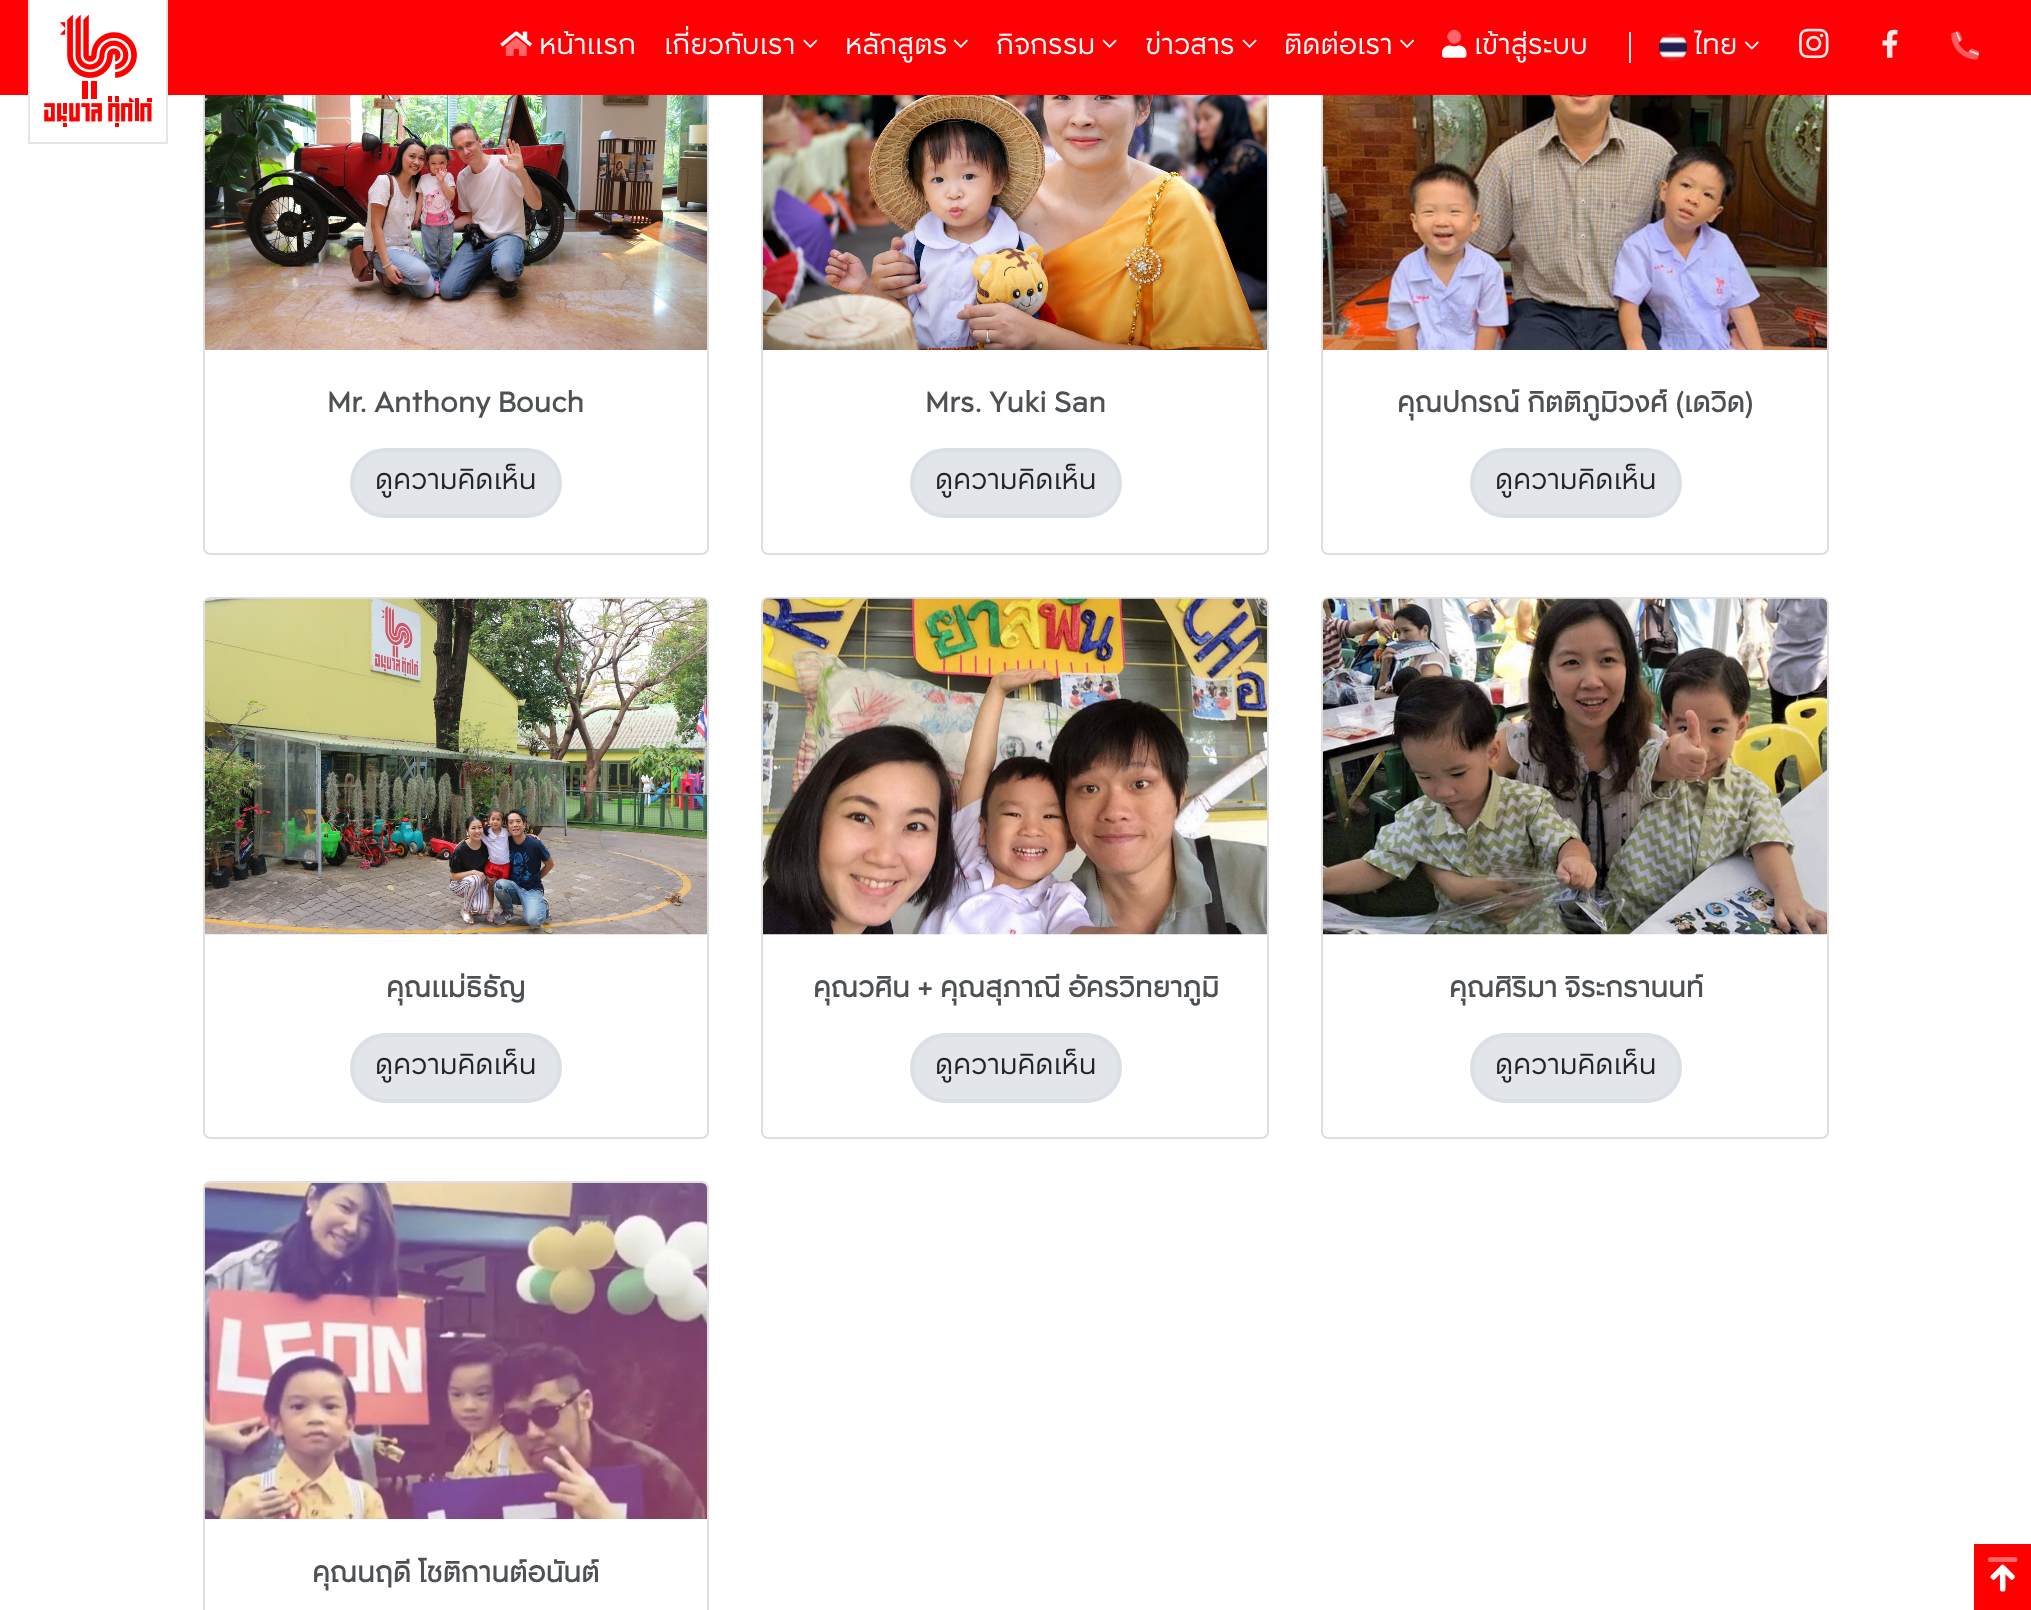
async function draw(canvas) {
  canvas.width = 2031
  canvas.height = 1610
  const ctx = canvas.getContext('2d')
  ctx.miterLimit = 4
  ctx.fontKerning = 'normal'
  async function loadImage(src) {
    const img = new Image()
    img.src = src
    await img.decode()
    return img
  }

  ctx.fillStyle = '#fff'
  ctx.fillRect(0, 0, 2031, 1610)
  ctx.beginPath()
  ctx.roundRect(204, 12, 504, 542, 6)
  ctx.strokeStyle = '#dfdfdf'
  ctx.lineWidth = 2
  ctx.stroke()
  ctx.beginPath()
  ctx.roundRect(762, 12, 506, 542, 6)
  ctx.stroke()
  ctx.beginPath()
  ctx.roundRect(1322, 12, 506, 542, 6)
  ctx.stroke()
  ctx.fillStyle = '#ff0005'
  ctx.fillRect(0, 0, 2031, 95)
  ctx.fillStyle = '#fff'
  ctx.fillRect(28, 0, 140, 95)
  ctx.fillStyle = '#e6e6e6'
  ctx.beginPath()
  ctx.moveTo(168, 0)
  ctx.lineTo(168, 144)
  ctx.lineTo(166, 142)
  ctx.lineTo(166, 0)
  ctx.closePath()
  ctx.fill()
  ctx.fillStyle = '#0000001a'
  ctx.beginPath()
  ctx.moveTo(168, 144)
  ctx.lineTo(28, 144)
  ctx.lineTo(30, 142)
  ctx.lineTo(166, 142)
  ctx.closePath()
  ctx.fill()
  ctx.beginPath()
  ctx.moveTo(28, 144)
  ctx.lineTo(28, 0)
  ctx.lineTo(30, 0)
  ctx.lineTo(30, 142)
  ctx.closePath()
  ctx.fill()
  ctx.drawImage(await loadImage('image0.png'), 44, 14, 108, 113)
  ctx.drawImage(await loadImage('image1.png'), 500, 31, 32, 16)
  ctx.drawImage(await loadImage('image2.png'), 505, 37, 22, 19)
  ctx.font = '28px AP'
  ctx.fillStyle = '#fff'
  ctx.fillText('หน้าแรก', 539, 54)
  ctx.fillText('เกี่ยวกับเรา', 664, 54)
  ctx.drawImage(await loadImage('image3.png'), 803, 39, 15, 9)
  ctx.fillText('หลักสูตร', 845, 54)
  ctx.drawImage(await loadImage('image4.png'), 953, 39, 15, 9)
  ctx.fillText('กิจกรรม', 996, 54)
  ctx.drawImage(await loadImage('image5.png'), 1102, 39, 15, 9)
  ctx.fillText('ข่าวสาร', 1145, 54)
  ctx.drawImage(await loadImage('image5.png'), 1242, 39, 15, 9)
  ctx.fillText('ติดต่อเรา', 1284, 54)
  ctx.drawImage(await loadImage('image6.png'), 1400, 39, 14, 9)
  ctx.fillStyle = '#ff6669'
  ctx.beginPath()
  ctx.moveTo(1459, 32)
  ctx.bezierCurveTo(1465.5, 38.5, 1456, 48, 1449.5, 41.5)
  ctx.bezierCurveTo(1443, 35, 1452.5, 25.5, 1459, 32)
  ctx.closePath()
  ctx.fill()
  ctx.drawImage(await loadImage('image7.png'), 1442, 45, 25, 13)
  ctx.fillStyle = '#fff'
  ctx.fillText('เข้าสู่ระบบ', 1474, 54)
  ctx.fillStyle = '#dee2e6'
  ctx.fillRect(1629, 32, 2, 31)
  ctx.drawImage(await loadImage('image8.png'), 1659, 33, 28, 29)
  ctx.fillStyle = '#fff'
  ctx.fillText('ไทย', 1694, 54)
  ctx.drawImage(await loadImage('image9.png'), 1744, 41, 15, 9)
  ctx.drawImage(await loadImage('image10.png'), 1799, 28, 30, 31)
  ctx.drawImage(await loadImage('image11.png'), 1882, 29, 16, 29)
  ctx.fillStyle = '#ffe6e6'
  ctx.beginPath()
  ctx.moveTo(1955.5, 32)
  ctx.lineTo(1957, 31.5)
  ctx.lineTo(1961, 40.5)
  ctx.lineTo(1959.5, 42)
  ctx.closePath()
  ctx.moveTo(1970, 50)
  ctx.lineTo(1979, 53.5)
  ctx.lineTo(1978.5, 55.5)
  ctx.lineTo(1969, 51.5)
  ctx.closePath()
  ctx.fill()
  ctx.drawImage(await loadImage('image12.png'), 1951, 31, 29, 29)
  ctx.drawImage(await loadImage('image13.png'), 204, 95, 503, 255)
  ctx.font = 'bold 28px AP'
  ctx.fillStyle = '#4d5154'
  ctx.fillText('Mr. Anthony Bouch', 327, 412)
  ctx.fillStyle = '#e2e6ea'
  ctx.beginPath()
  ctx.roundRect(352, 450, 208, 66, 33)
  ctx.fill()
  ctx.strokeStyle = '#dae0e5'
  ctx.lineWidth = 4
  ctx.stroke()
  ctx.font = '28px AP'
  ctx.fillStyle = '#212529'
  ctx.fillText('ดูความคิดเห็น', 375, 489)
  ctx.drawImage(await loadImage('image14.png'), 763, 95, 504, 255)
  ctx.font = 'bold 28px AP'
  ctx.fillStyle = '#4d5154'
  ctx.fillText('Mrs. Yuki San', 925, 412)
  ctx.fillStyle = '#e2e6ea'
  ctx.beginPath()
  ctx.roundRect(912, 450, 208, 66, 33)
  ctx.fill()
  ctx.stroke()
  ctx.font = '28px AP'
  ctx.fillStyle = '#212529'
  ctx.fillText('ดูความคิดเห็น', 935, 489)
  ctx.drawImage(await loadImage('image15.png'), 1323, 95, 504, 255)
  ctx.font = 'bold 28px AP'
  ctx.fillStyle = '#4d5154'
  ctx.fillText('คุณปกรณ์ กิตติภูมิวงศ์ (เดวิด)', 1397, 412)
  ctx.fillStyle = '#e2e6ea'
  ctx.beginPath()
  ctx.roundRect(1472, 450, 208, 66, 33)
  ctx.fill()
  ctx.stroke()
  ctx.font = '28px AP'
  ctx.fillStyle = '#212529'
  ctx.fillText('ดูความคิดเห็น', 1495, 489)
  ctx.beginPath()
  ctx.roundRect(204, 598, 504, 540, 6)
  ctx.strokeStyle = '#dfdfdf'
  ctx.lineWidth = 2
  ctx.stroke()
  ctx.drawImage(await loadImage('image16.png'), 204, 598, 503, 337)
  ctx.font = 'bold 28px AP'
  ctx.fillStyle = '#4d5154'
  ctx.fillText('คุณแม่ธิธัญ', 386, 997)
  ctx.fillStyle = '#e2e6ea'
  ctx.beginPath()
  ctx.roundRect(352, 1035, 208, 66, 33)
  ctx.fill()
  ctx.strokeStyle = '#dae0e5'
  ctx.lineWidth = 4
  ctx.stroke()
  ctx.font = '28px AP'
  ctx.fillStyle = '#212529'
  ctx.fillText('ดูความคิดเห็น', 375, 1074)
  ctx.beginPath()
  ctx.roundRect(762, 598, 506, 540, 6)
  ctx.strokeStyle = '#dfdfdf'
  ctx.lineWidth = 2
  ctx.stroke()
  ctx.drawImage(await loadImage('image17.png'), 763, 598, 504, 337)
  ctx.font = 'bold 28px AP'
  ctx.fillStyle = '#4d5154'
  ctx.fillText('คุณวศิน + คุณสุภาณี อัครวิทยาภูมิ', 813, 997)
  ctx.fillStyle = '#e2e6ea'
  ctx.beginPath()
  ctx.roundRect(912, 1035, 208, 66, 33)
  ctx.fill()
  ctx.strokeStyle = '#dae0e5'
  ctx.lineWidth = 4
  ctx.stroke()
  ctx.font = '28px AP'
  ctx.fillStyle = '#212529'
  ctx.fillText('ดูความคิดเห็น', 935, 1074)
  ctx.beginPath()
  ctx.roundRect(1322, 598, 506, 540, 6)
  ctx.strokeStyle = '#dfdfdf'
  ctx.lineWidth = 2
  ctx.stroke()
  ctx.drawImage(await loadImage('image18.png'), 1323, 598, 504, 337)
  ctx.font = 'bold 28px AP'
  ctx.fillStyle = '#4d5154'
  ctx.fillText('คุณศิริมา จิระกรานนท์', 1449, 997)
  ctx.fillStyle = '#e2e6ea'
  ctx.beginPath()
  ctx.roundRect(1472, 1035, 208, 66, 33)
  ctx.fill()
  ctx.strokeStyle = '#dae0e5'
  ctx.lineWidth = 4
  ctx.stroke()
  ctx.font = '28px AP'
  ctx.fillStyle = '#212529'
  ctx.fillText('ดูความคิดเห็น', 1495, 1074)
  ctx.beginPath()
  ctx.roundRect(204, 1182, 504, 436, 6)
  ctx.strokeStyle = '#dfdfdf'
  ctx.lineWidth = 2
  ctx.stroke()
  ctx.drawImage(await loadImage('image19.png'), 204, 1183, 503, 336)
  ctx.font = 'bold 28px AP'
  ctx.fillStyle = '#4d5154'
  ctx.fillText('คุณนฤดี โชติกานต์อนันต์', 312, 1582)
  ctx.fillStyle = '#f00'
  ctx.fillRect(1974, 1544, 57, 66)
  ctx.drawImage(await loadImage('image20.png'), 1988, 1557, 30, 6)
  ctx.drawImage(await loadImage('image21.png'), 1990, 1564, 25, 28)
}

draw(document.querySelector('canvas'))
